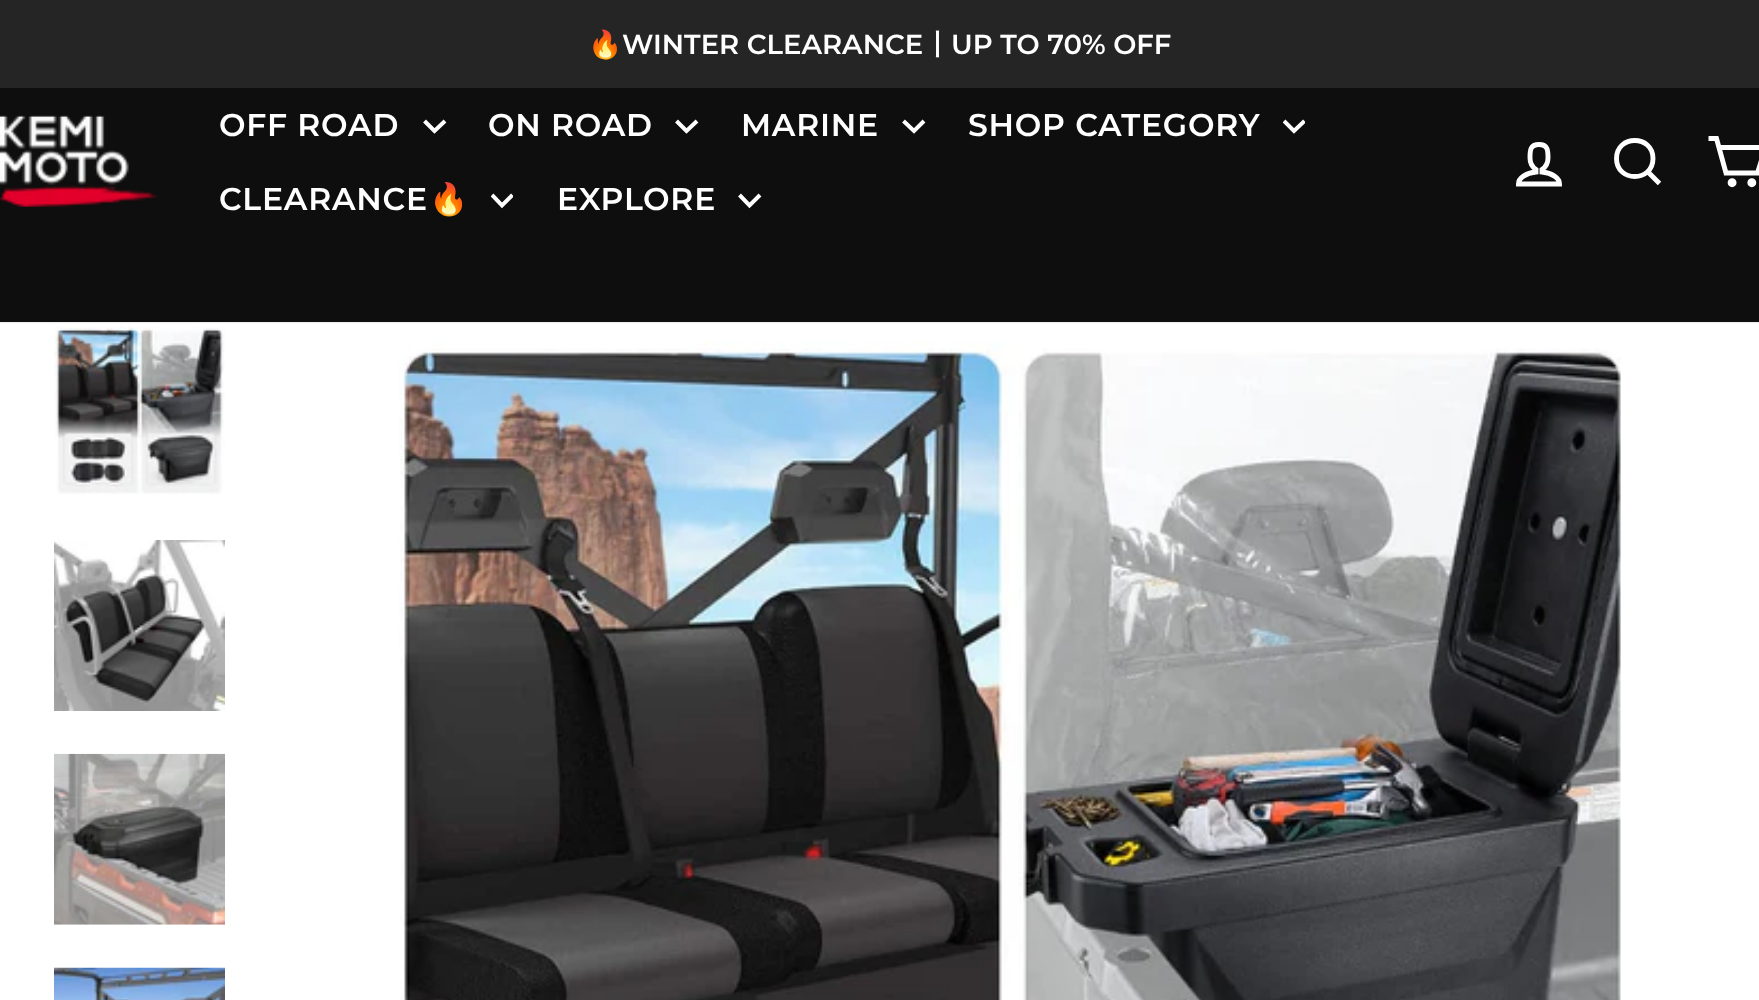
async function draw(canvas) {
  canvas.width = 1759
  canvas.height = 1000
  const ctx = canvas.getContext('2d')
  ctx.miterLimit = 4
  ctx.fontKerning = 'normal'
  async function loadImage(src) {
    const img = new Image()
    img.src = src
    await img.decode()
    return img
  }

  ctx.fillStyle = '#fff'
  ctx.fillRect(0, 0, 1759, 1000)
  ctx.fillStyle = '#252525'
  ctx.fillRect(0, 0, 1759, 88)
  ctx.font = 'bold 27.5px Noto Color Emoji'
  ctx.fillStyle = '#fff'
  ctx.fillText('🔥', 588, 54)
  ctx.font = '600 27.5px Montserrat'
  ctx.fillText('WINTER CLEARANCE', 622, 54)
  ctx.font = 'bold 27.5px WenQuanYi Zen Hei'
  ctx.fillText('丨', 924, 54)
  ctx.font = '600 27.5px Montserrat'
  ctx.fillText('UP TO 70% OFF', 951, 54)
  ctx.fillStyle = '#00000033'
  ctx.filter = 'blur(1px)'
  ctx.beginPath()
  ctx.rect(0, 236, 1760, 86)
  ctx.fill()
  ctx.filter = 'none'
  ctx.fillStyle = '#0e0e0e'
  ctx.fillRect(0, 88, 1759, 234)
  ctx.drawImage(await loadImage('image0.png'), 0, 115, 158, 92)
  ctx.letterSpacing = '0.75px'
  ctx.font = '600 31.5px Montserrat'
  ctx.fillStyle = '#fff'
  ctx.fillText('OFF ROAD', 219, 136)
  ctx.beginPath()
  ctx.moveTo(424.5, 121)
  ctx.lineTo(434.5, 131)
  ctx.lineTo(445, 121)
  ctx.strokeStyle = '#fff'
  ctx.lineWidth = 4
  ctx.stroke()
  ctx.fillText('ON ROAD', 488, 136)
  ctx.beginPath()
  ctx.moveTo(676.5, 121)
  ctx.lineTo(686.5, 131)
  ctx.lineTo(697, 121)
  ctx.stroke()
  ctx.fillText('MARINE', 741, 136)
  ctx.beginPath()
  ctx.moveTo(903.5, 121)
  ctx.lineTo(914, 131)
  ctx.lineTo(924, 121)
  ctx.stroke()
  ctx.fillText('SHOP CATEGORY', 968, 136)
  ctx.save()
  ctx.beginPath()
  ctx.rect(1283, 115, 22, 22)
  ctx.clip()
  ctx.beginPath()
  ctx.moveTo(1284, 121)
  ctx.lineTo(1294, 131)
  ctx.lineTo(1304.5, 121)
  ctx.stroke()
  ctx.restore()
  ctx.fillText('CLEARANCE', 219, 210)
  ctx.font = 'bold 31.5px Noto Color Emoji'
  ctx.fillText('🔥', 429, 210)
  ctx.save()
  ctx.beginPath()
  ctx.rect(491, 189, 22, 23)
  ctx.clip()
  ctx.beginPath()
  ctx.moveTo(492, 195)
  ctx.lineTo(502, 205.5)
  ctx.lineTo(512.5, 195)
  ctx.stroke()
  ctx.restore()
  ctx.font = '600 31.5px Montserrat'
  ctx.fillText('EXPLORE', 557, 210)
  ctx.beginPath()
  ctx.moveTo(739.5, 195)
  ctx.lineTo(749.5, 205.5)
  ctx.lineTo(760, 195)
  ctx.stroke()
  ctx.beginPath()
  ctx.moveTo(1542, 172)
  ctx.lineTo(1542, 169.5)
  ctx.bezierCurveTo(1545, 167.5, 1548, 163, 1548, 158)
  ctx.bezierCurveTo(1548, 150.5, 1548, 144.5, 1539, 144.5)
  ctx.bezierCurveTo(1530, 144.5, 1530, 150.5, 1530, 158)
  ctx.bezierCurveTo(1530, 163, 1533, 167.5, 1536, 169.5)
  ctx.lineTo(1536, 172)
  ctx.bezierCurveTo(1526, 173, 1518.5, 178, 1518.5, 184)
  ctx.lineTo(1559.5, 184)
  ctx.bezierCurveTo(1559.5, 178, 1552, 173, 1542, 172)
  ctx.closePath()
  ctx.lineWidth = 4.9
  ctx.stroke()
  ctx.beginPath()
  ctx.moveTo(1653, 158.5)
  ctx.bezierCurveTo(1653, 182.5, 1616.5, 182.5, 1616.5, 158.5)
  ctx.bezierCurveTo(1616.5, 134.5, 1653, 134.5, 1653, 158.5)
  ctx.closePath()
  ctx.moveTo(1659.5, 183.5)
  ctx.lineTo(1648, 172)
  ctx.stroke()
  ctx.beginPath()
  ctx.moveTo(1719.5, 147.5)
  ctx.lineTo(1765.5, 147.5)
  ctx.lineTo(1757.5, 173)
  ctx.lineTo(1726, 173)
  ctx.lineTo(1716.5, 138.5)
  ctx.lineTo(1708.5, 138.5)
  ctx.stroke()
  ctx.beginPath()
  ctx.arc(1732.1, 182.7, 2, 0, 2 * Math.PI)
  ctx.fill()
  ctx.stroke()
  ctx.beginPath()
  ctx.arc(1751.8, 182.7, 2, 0, 2 * Math.PI)
  ctx.fill()
  ctx.stroke()
  ctx.drawImage(await loadImage('image1.png'), 54, 326, 171, 168)
  ctx.drawImage(await loadImage('image2.png'), 54, 540, 171, 171)
  ctx.drawImage(await loadImage('image3.png'), 54, 753, 171, 172)
  ctx.drawImage(await loadImage('image4.png'), 54, 967, 171, 33)
  ctx.drawImage(await loadImage('image5.png'), 398, 340, 1223, 660)
}

draw(document.querySelector('canvas'))
